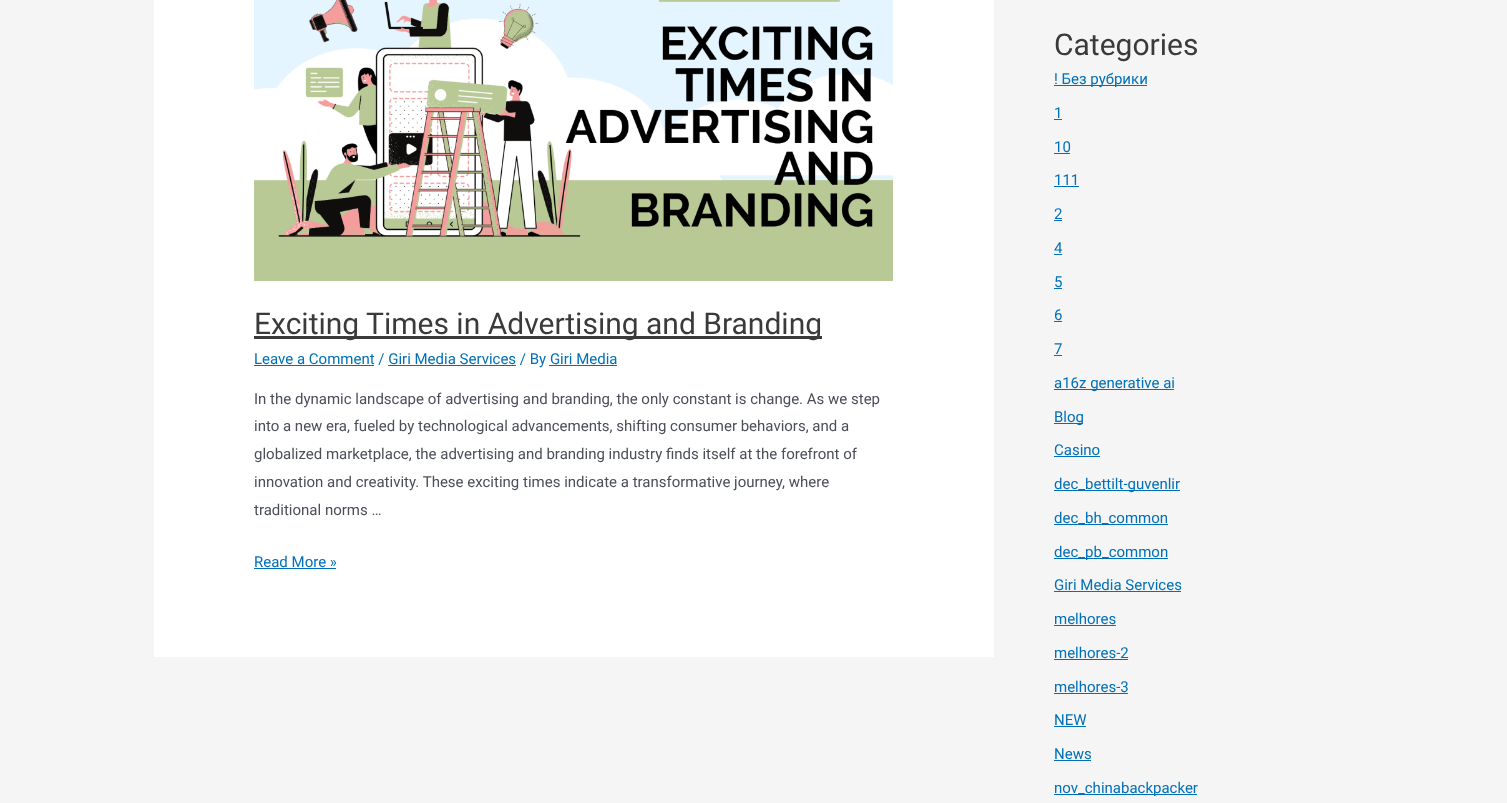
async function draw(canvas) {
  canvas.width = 1507
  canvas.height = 803
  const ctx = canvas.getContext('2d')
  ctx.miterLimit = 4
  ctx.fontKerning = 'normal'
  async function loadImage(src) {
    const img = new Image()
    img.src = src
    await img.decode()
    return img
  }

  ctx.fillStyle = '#f5f5f5'
  ctx.fillRect(0, 0, 1507, 803)
  ctx.fillStyle = '#fff'
  ctx.fillRect(154, 0, 840, 657)
  ctx.drawImage(await loadImage('image0.png'), 254, 0, 639, 281)
  ctx.fillStyle = '#3a3a3a'
  ctx.fillRect(254, 336, 568, 3)
  ctx.font = '30px Roboto'
  ctx.fillText('Exciting Times in Advertising and Branding', 254, 334)
  ctx.fillStyle = '#0170b9'
  ctx.fillRect(254, 365, 120, 1)
  ctx.font = '15px Roboto'
  ctx.fillText('Leave a Comment / Giri Media Services / By Giri Media', 254, 364)
  ctx.fillRect(388, 365, 128, 1)
  ctx.fillRect(549, 365, 68, 1)
  ctx.fillStyle = '#4b4f58'
  ctx.fillText('In the dynamic landscape of advertising and branding, the only constant is change. As we step', 254, 404)
  ctx.fillText('into a new era, fueled by technological advancements, shifting consumer behaviors, and a', 254, 431)
  ctx.fillText('globalized marketplace, the advertising and branding industry finds itself at the forefront of', 254, 459)
  ctx.fillText('innovation and creativity. These exciting times indicate a transformative journey, where', 254, 487)
  ctx.fillText('traditional norms …', 254, 515)
  ctx.fillStyle = '#0170b9'
  ctx.fillText('Read More »', 254, 567)
  ctx.fillRect(254, 568, 82, 1)
  ctx.font = '30px Roboto'
  ctx.fillStyle = '#3a3a3a'
  ctx.fillText('Categories', 1054, 55)
  ctx.fillStyle = '#0170b9'
  ctx.fillRect(1054, 85, 93, 1)
  ctx.font = '15px Roboto'
  ctx.fillText('! Без рубрики', 1054, 84)
  ctx.fillText('1', 1054, 118)
  ctx.fillRect(1054, 119, 8, 1)
  ctx.fillText('10', 1054, 152)
  ctx.fillRect(1054, 153, 16, 1)
  ctx.fillText('111', 1054, 185)
  ctx.fillRect(1054, 186, 25, 1)
  ctx.fillText('2', 1054, 219)
  ctx.fillRect(1054, 220, 8, 1)
  ctx.fillText('4', 1054, 253)
  ctx.fillRect(1054, 254, 8, 1)
  ctx.fillText('5', 1054, 287)
  ctx.fillRect(1054, 288, 8, 1)
  ctx.fillText('6', 1054, 320)
  ctx.fillRect(1054, 321, 8, 1)
  ctx.fillText('7', 1054, 354)
  ctx.fillRect(1054, 355, 8, 1)
  ctx.fillRect(1054, 389, 120, 1)
  ctx.fillText('a16z generative ai', 1054, 388)
  ctx.fillRect(1054, 423, 29, 1)
  ctx.fillText('Blog', 1054, 422)
  ctx.fillText('Casino', 1054, 455)
  ctx.fillRect(1054, 456, 46, 1)
  ctx.fillRect(1054, 490, 126, 1)
  ctx.fillText('dec_bettilt-guvenlir', 1054, 489)
  ctx.fillRect(1054, 524, 114, 1)
  ctx.fillText('dec_bh_common', 1054, 523)
  ctx.fillRect(1054, 558, 114, 1)
  ctx.fillText('dec_pb_common', 1054, 557)
  ctx.fillText('Giri Media Services', 1054, 590)
  ctx.fillRect(1054, 591, 127, 1)
  ctx.fillText('melhores', 1054, 624)
  ctx.fillRect(1054, 625, 62, 1)
  ctx.fillText('melhores-2', 1054, 658)
  ctx.fillRect(1054, 659, 74, 1)
  ctx.fillText('melhores-3', 1054, 692)
  ctx.fillRect(1054, 693, 74, 1)
  ctx.fillText('NEW', 1054, 725)
  ctx.fillRect(1054, 726, 32, 1)
  ctx.fillText('News', 1054, 759)
  ctx.fillRect(1054, 760, 37, 1)
  ctx.fillRect(1054, 794, 143, 1)
  ctx.fillText('nov_chinabackpacker', 1054, 793)
}

draw(document.querySelector('canvas'))
